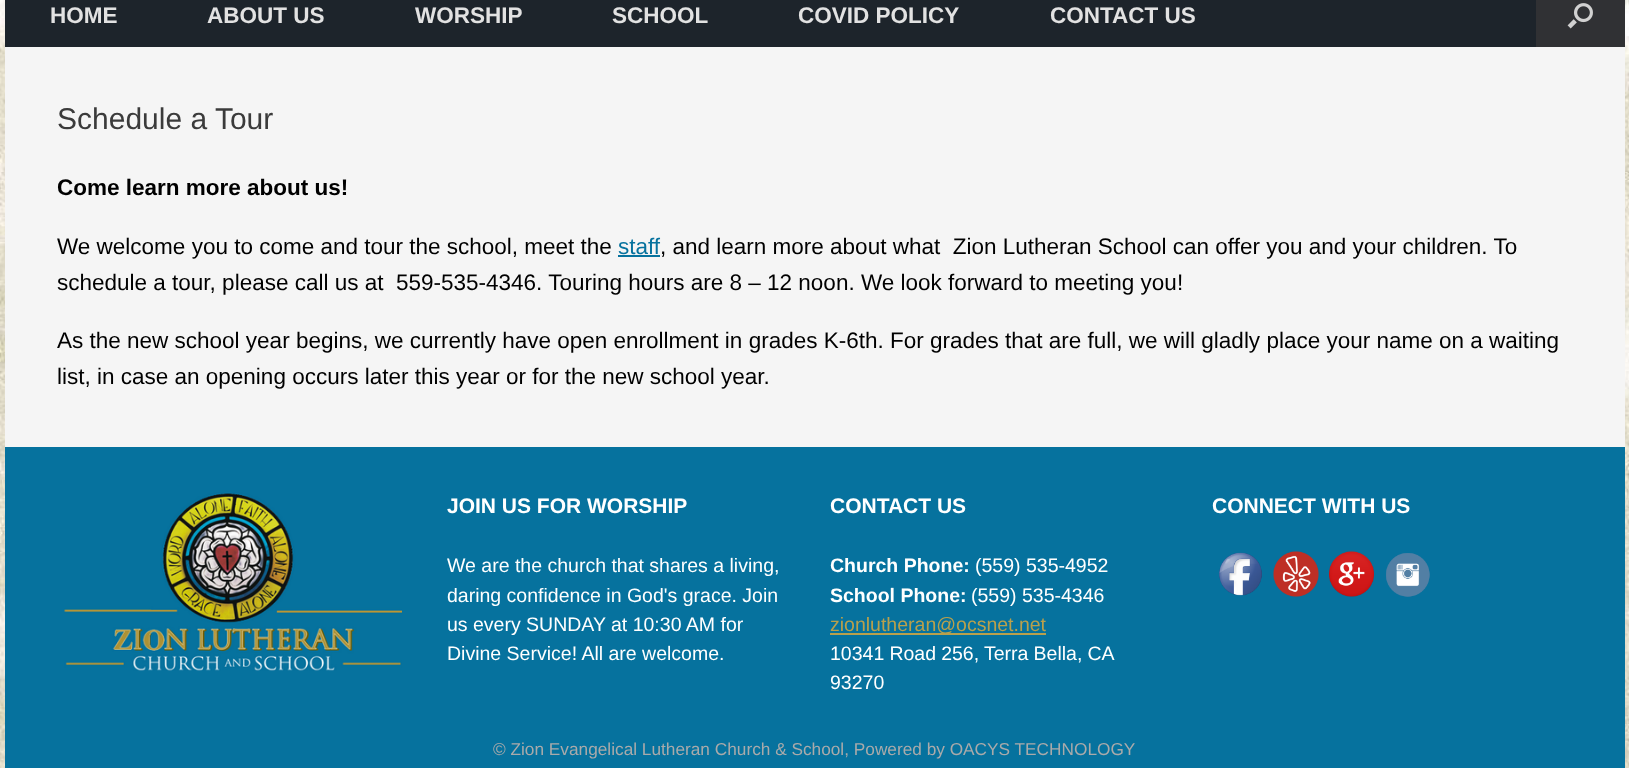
async function draw(canvas) {
  canvas.width = 1629
  canvas.height = 768
  const ctx = canvas.getContext('2d')
  ctx.miterLimit = 4
  ctx.fontKerning = 'normal'
  async function loadImage(src) {
    const img = new Image()
    img.src = src
    await img.decode()
    return img
  }

  ctx.fillStyle = '#fff'
  ctx.fillRect(0, 0, 1629, 768)
  ctx.drawImage(await loadImage('image0.png'), 0, 0, 1629, 768)
  ctx.fillStyle = '#1d242b'
  ctx.fillRect(5, 0, 1531, 47)
  ctx.font = 'bold 22.5px Liberation Sans'
  ctx.fillStyle = '#e2e2e2'
  ctx.fillText('HOME', 50, 23)
  ctx.fillText('ABOUT US', 207, 23)
  ctx.fillText('WORSHIP', 415, 23)
  ctx.fillText('SCHOOL', 612, 23)
  ctx.fillText('COVID POLICY', 798, 23)
  ctx.fillText('CONTACT US', 1050, 23)
  ctx.fillStyle = '#303134'
  ctx.fillRect(1536, 0, 89, 47)
  ctx.drawImage(await loadImage('image1.png'), 1567, 3, 26, 26)
  ctx.fillStyle = '#f5f5f5'
  ctx.fillRect(5, 47, 1620, 400)
  ctx.font = '30px Liberation Sans'
  ctx.fillStyle = '#3b3b3b'
  ctx.fillText('Schedule a Tour', 57, 129)
  ctx.font = 'bold 22.5px Liberation Sans'
  ctx.fillStyle = '#000'
  ctx.fillText('Come learn more about us!', 57, 195)
  ctx.font = '22.5px Liberation Sans'
  ctx.fillText('We welcome you to come and tour the school, meet the', 57, 254)
  ctx.fillStyle = '#06729e'
  ctx.fillText('staff', 618, 254)
  ctx.fillRect(618, 255, 42, 2)
  ctx.fillStyle = '#000'
  ctx.fillText(', and learn more about what  Zion Lutheran School can offer you and your children. To', 660, 254)
  ctx.fillText('schedule a tour, please call us at  559-535-4346. Touring hours are 8 – 12 noon. We look forward to meeting you!', 57, 290)
  ctx.fillText('As the new school year begins, we currently have open enrollment in grades K-6th. For grades that are full, we will gladly place your name on a waiting', 57, 348)
  ctx.fillText('list, in case an opening occurs later this year or for the new school year.', 57, 384)
  ctx.fillStyle = '#06729e'
  ctx.fillRect(5, 447, 1620, 321)
  ctx.drawImage(await loadImage('image2.png'), 64, 492, 338, 179)
  ctx.font = 'bold 21px Liberation Sans'
  ctx.fillStyle = '#fff'
  ctx.fillText('JOIN US FOR WORSHIP', 447, 513)
  ctx.font = '19.5px Liberation Sans'
  ctx.fillText('We are the church that shares a living,', 447, 572)
  ctx.fillText('daring confidence in God\'s grace. Join', 447, 602)
  ctx.fillText('us every SUNDAY at 10:30 AM for', 447, 631)
  ctx.fillText('Divine Service! All are welcome.', 447, 660)
  ctx.font = 'bold 21px Liberation Sans'
  ctx.fillText('CONTACT US', 830, 513)
  ctx.font = 'bold 19.5px Liberation Sans'
  ctx.fillText('Church Phone:', 830, 572)
  ctx.font = '19.5px Liberation Sans'
  ctx.fillText('(559) 535-4952', 975, 572)
  ctx.font = 'bold 19.5px Liberation Sans'
  ctx.fillText('School Phone:', 830, 602)
  ctx.font = '19.5px Liberation Sans'
  ctx.fillText('(559) 535-4346', 971, 602)
  ctx.fillStyle = '#b9a04c'
  ctx.fillRect(830, 633, 216, 2)
  ctx.fillText('zionlutheran@ocsnet.net', 830, 631)
  ctx.wordSpacing = '-0.25px'
  ctx.fillStyle = '#fff'
  ctx.fillText('10341 Road 256, Terra Bella, CA', 830, 660)
  ctx.wordSpacing = '0px'
  ctx.fillText('93270', 830, 689)
  ctx.font = 'bold 21px Liberation Sans'
  ctx.fillText('CONNECT WITH US', 1212, 513)
  ctx.drawImage(await loadImage('image3.png'), 1219, 552, 43, 44)
  ctx.drawImage(await loadImage('image4.png'), 1273, 551, 46, 46)
  ctx.drawImage(await loadImage('image5.png'), 1329, 551, 45, 46)
  ctx.drawImage(await loadImage('image6.png'), 1386, 553, 44, 44)
  ctx.font = '17.25px Liberation Sans'
  ctx.fillStyle = '#aaa'
  ctx.fillText('© Zion Evangelical Lutheran Church & School, Powered by OACYS TECHNOLOGY', 493, 755)
}

draw(document.querySelector('canvas'))
